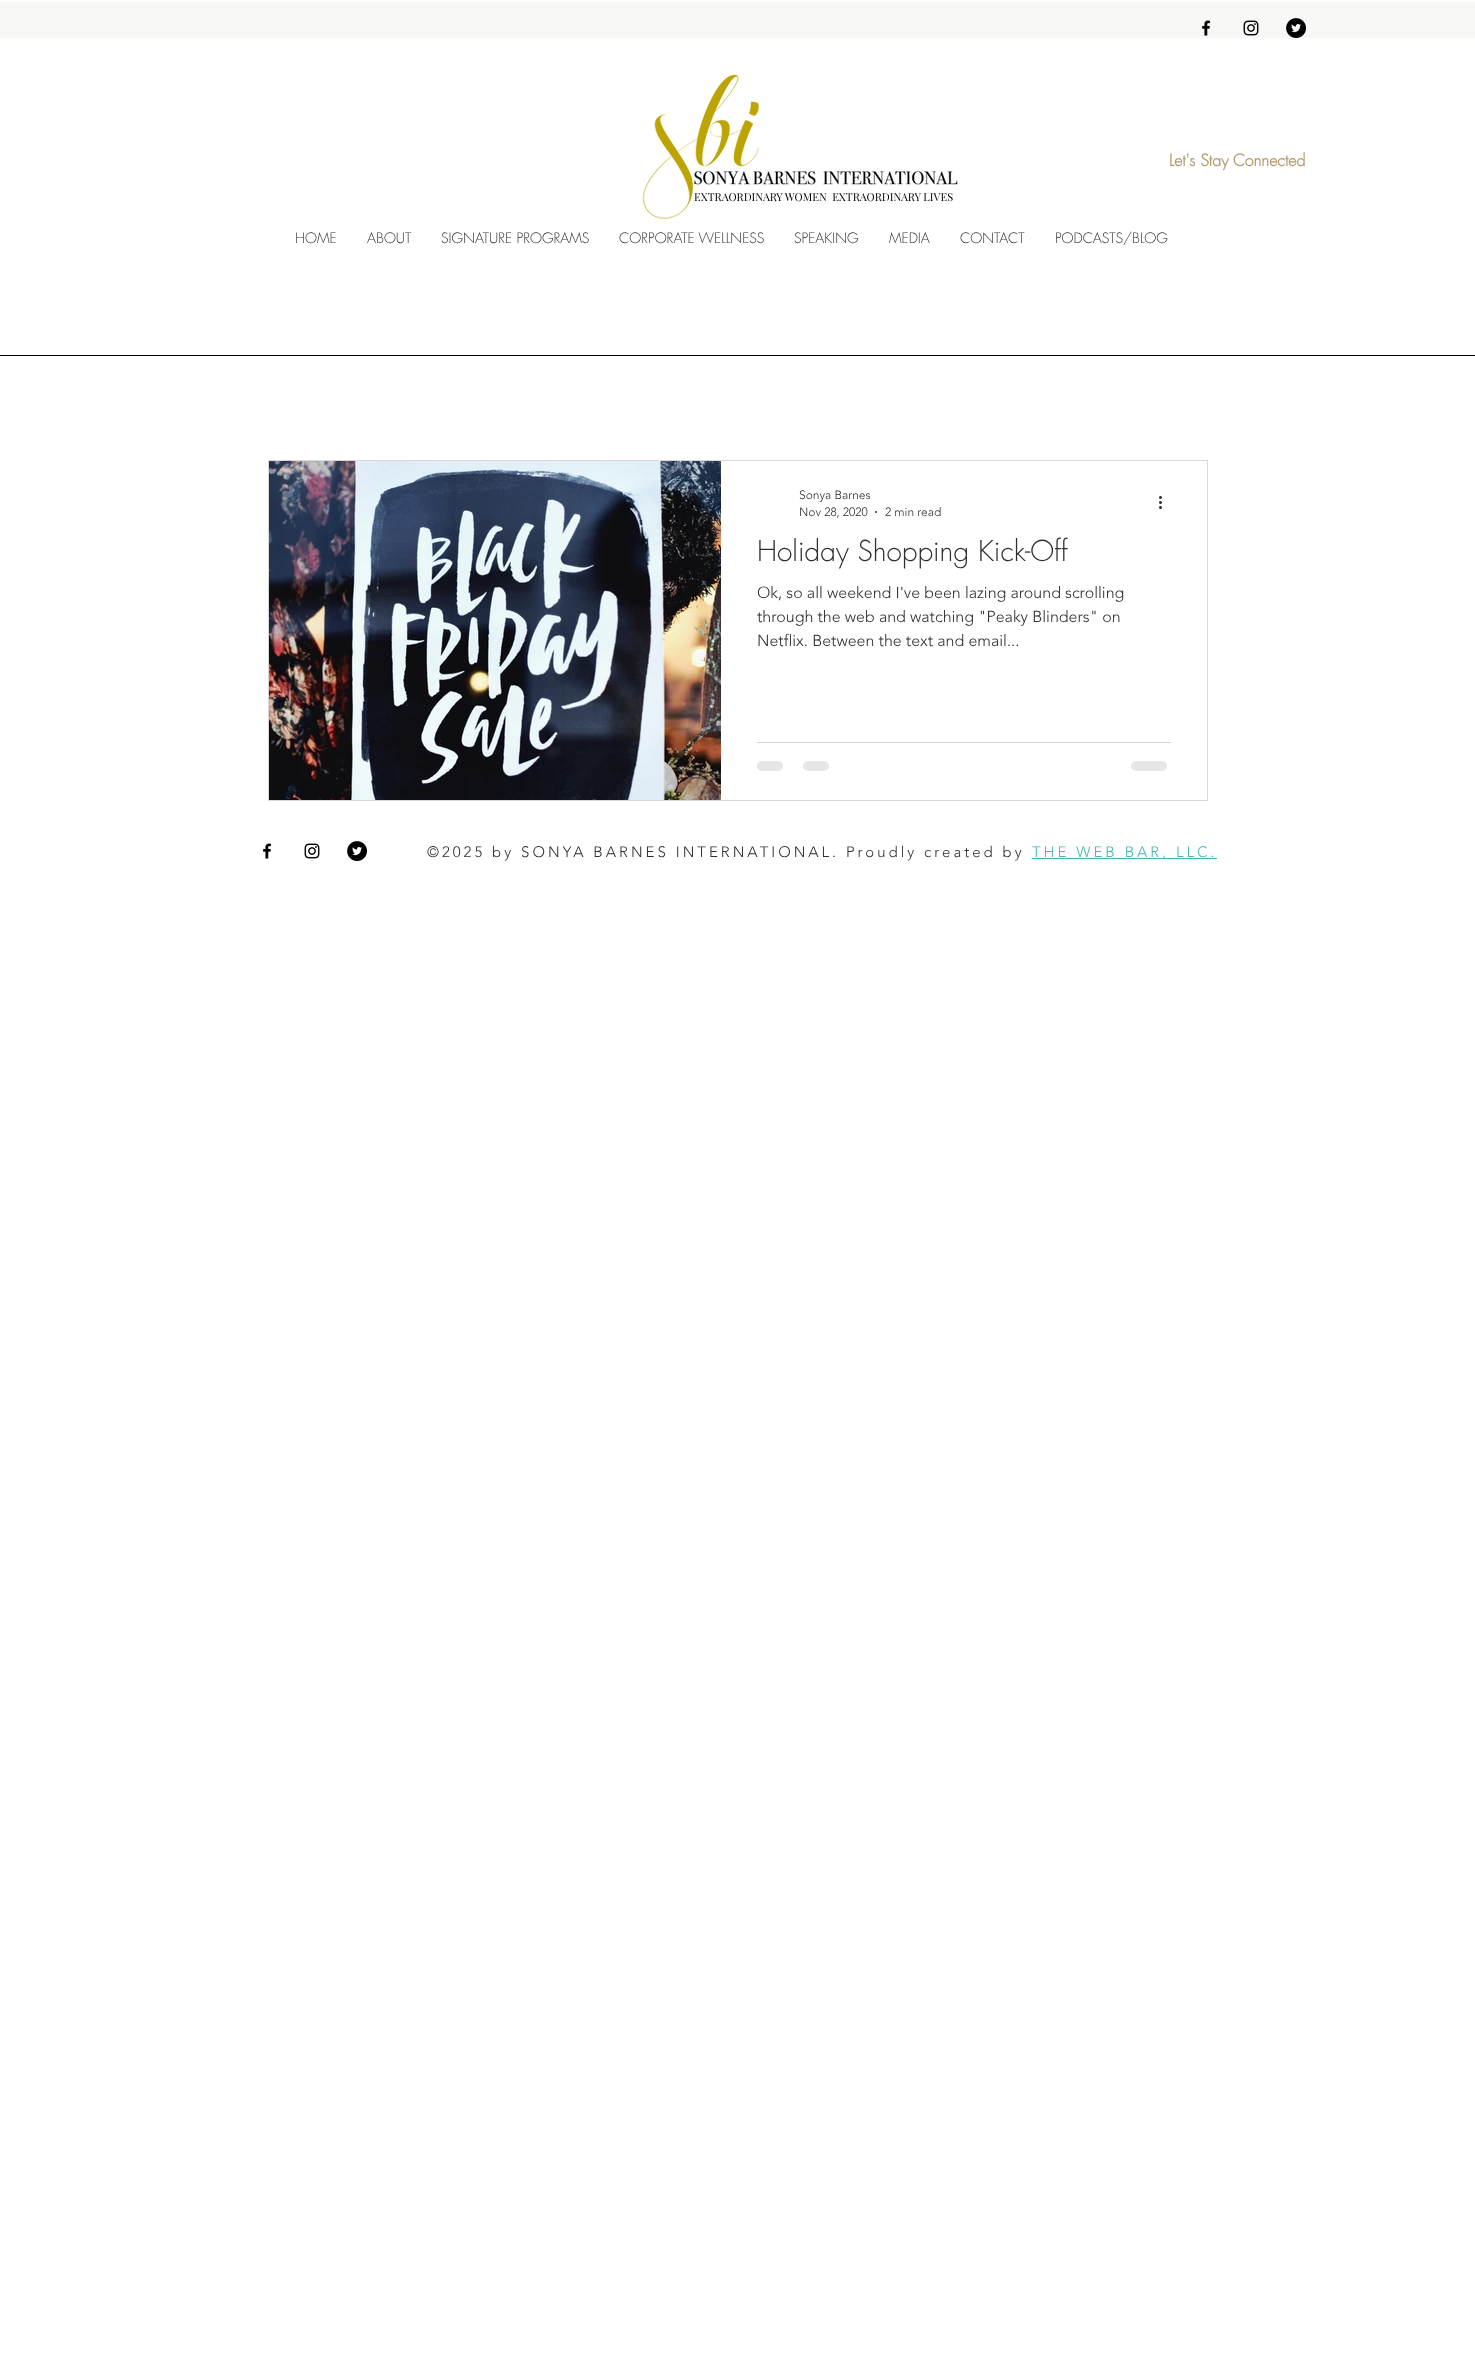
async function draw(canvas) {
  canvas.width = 1475
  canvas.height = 2357
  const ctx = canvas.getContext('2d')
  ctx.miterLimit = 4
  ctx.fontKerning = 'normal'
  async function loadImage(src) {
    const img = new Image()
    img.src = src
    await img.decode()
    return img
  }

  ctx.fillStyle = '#fff'
  ctx.fillRect(0, 0, 1475, 2357)
  ctx.fillStyle = '#f8f9f7'
  ctx.fillRect(0, 2, 1475, 36)
  ctx.drawImage(await loadImage('image0.png'), 1202, 20, 9, 16)
  ctx.drawImage(await loadImage('image1.png'), 1243, 20, 16, 16)
  ctx.drawImage(await loadImage('image2.png'), 1286, 18, 20, 20)
  ctx.font = '11px Playfair Display'
  ctx.fillStyle = '#000'
  ctx.fillText('EXTRAORDINARY WOMEN  EXTRAORDINARY LIVES', 694, 201)
  ctx.drawImage(await loadImage('image3.png'), 642, 74, 316, 145)
  ctx.font = 'bold 16px futura'
  ctx.fillStyle = '#b2996b'
  ctx.fillText('Let\'s Stay Connected', 1169, 166)
  ctx.font = '300 14px futura'
  ctx.fillStyle = '#2f2e2e'
  ctx.fillText('HOME', 295, 243)
  ctx.fillText('ABOUT', 367, 243)
  ctx.fillText('SIGNATURE PROGRAMS', 441, 243)
  ctx.fillText('CORPORATE WELLNESS', 619, 243)
  ctx.fillText('SPEAKING', 794, 243)
  ctx.fillText('MEDIA', 889, 243)
  ctx.fillText('CONTACT', 960, 243)
  ctx.fillText('PODCASTS/BLOG', 1055, 243)
  ctx.fillStyle = '#000'
  ctx.fillRect(0, 355, 1475, 1)
  ctx.strokeStyle = '#d9d9d9'
  ctx.strokeRect(268.5, 460.5, 939, 340)
  ctx.drawImage(await loadImage('image4.png'), 269, 461, 452, 339)
  ctx.font = '300 12px "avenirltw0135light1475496"'
  ctx.fillStyle = '#2f2e2e'
  ctx.fillText('Sonya Barnes', 799, 499)
  ctx.fillText('Nov 28, 2020', 799, 516)
  ctx.beginPath()
  ctx.arc(876, 512, 1, 0, 2 * Math.PI)
  ctx.fill()
  ctx.fillText('2 min read', 885, 516)
  ctx.drawImage(await loadImage('image5.png'), 1159, 496, 3, 13)
  ctx.font = '300 28px futura'
  ctx.fillText('Holiday Shopping Kick-Off', 757, 561)
  ctx.font = '300 16px "avenirltw0135light1475496"'
  ctx.fillText('Ok, so all weekend I\'ve been lazing around scrolling', 757, 598)
  ctx.fillText('through the web and watching "Peaky Blinders" on', 757, 622)
  ctx.fillText('Netflix. Between the text and email...', 757, 646)
  ctx.fillStyle = '#d5d5d5'
  ctx.fillRect(757, 742, 414, 1)
  ctx.fillStyle = '#e6e6e6'
  ctx.beginPath()
  ctx.roundRect(757, 761, 26, 10, 5)
  ctx.fill()
  ctx.beginPath()
  ctx.roundRect(803, 761, 26, 10, 5)
  ctx.fill()
  ctx.beginPath()
  ctx.roundRect(1131, 761, 36, 10, 5)
  ctx.fill()
  ctx.drawImage(await loadImage('image6.png'), 263, 843, 9, 16)
  ctx.drawImage(await loadImage('image7.png'), 304, 843, 16, 16)
  ctx.drawImage(await loadImage('image8.png'), 347, 841, 20, 20)
  ctx.letterSpacing = '3px'
  ctx.font = '300 15px "avenirltw0135light1475496"'
  ctx.fillStyle = '#2f2e2e'
  ctx.fillText('©2025 by SONYA BARNES INTERNATIONAL. Proudly created by', 427, 857)
  ctx.fillStyle = '#41baae'
  ctx.fillRect(1032, 858, 185, 1)
  ctx.fillText('THE WEB BAR, LLC.', 1032, 857)
}

draw(document.querySelector('canvas'))
